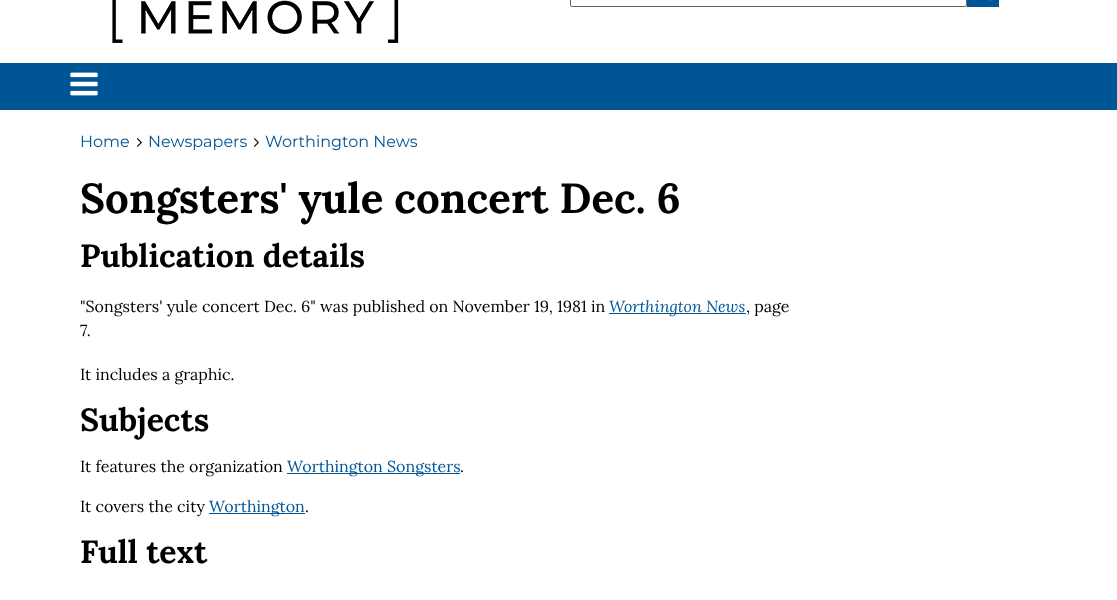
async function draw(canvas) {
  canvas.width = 1117
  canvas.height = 600
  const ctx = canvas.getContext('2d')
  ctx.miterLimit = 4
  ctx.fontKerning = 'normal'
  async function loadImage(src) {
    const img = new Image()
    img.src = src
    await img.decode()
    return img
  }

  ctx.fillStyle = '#fff'
  ctx.fillRect(0, 0, 1117, 600)
  ctx.drawImage(await loadImage('image0.png'), 112, 0, 287, 43)
  ctx.beginPath()
  ctx.roundRect(570.5, -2.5, 396, 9, 1.5)
  ctx.strokeStyle = '#636466'
  ctx.stroke()
  ctx.fillStyle = '#005596'
  ctx.fillRect(967, 0, 32, 7)
  ctx.drawImage(await loadImage('image1.png'), 990, 0, 2, 1)
  ctx.fillRect(0, 63, 1117, 47)
  ctx.drawImage(await loadImage('image2.png'), 70, 72, 28, 24)
  ctx.font = '16px Montserrat'
  ctx.fillText('Home', 80, 147)
  ctx.drawImage(await loadImage('image3.png'), 137, 138, 5, 9)
  ctx.fillText('Newspapers', 148, 147)
  ctx.drawImage(await loadImage('image3.png'), 254, 138, 5, 9)
  ctx.fillText('Worthington News', 265, 147)
  ctx.font = 'bold 42px Lora'
  ctx.fillStyle = '#000'
  ctx.fillText('Songsters\' yule concert Dec. 6', 80, 213)
  ctx.font = 'bold 32px Lora'
  ctx.fillText('Publication details', 80, 267)
  ctx.font = '16px Lora'
  ctx.fillText('"Songsters\' yule concert Dec. 6" was published on November 19, 1981 in', 80, 312)
  ctx.fillStyle = '#005596'
  ctx.fillRect(609, 313, 137, 1)
  ctx.font = 'italic 16px Lora'
  ctx.fillText('Worthington News', 609, 312)
  ctx.font = '16px Lora'
  ctx.fillStyle = '#000'
  ctx.fillText(', page', 746, 312)
  ctx.fillText('7.', 80, 336)
  ctx.fillText('It includes a graphic.', 80, 380)
  ctx.font = 'bold 32px Lora'
  ctx.fillText('Subjects', 80, 431)
  ctx.font = '16px Lora'
  ctx.fillText('It features the organization', 80, 472)
  ctx.fillStyle = '#005596'
  ctx.fillRect(287, 473, 173, 1)
  ctx.fillText('Worthington Songsters', 287, 472)
  ctx.fillStyle = '#000'
  ctx.fillText('.', 460, 472)
  ctx.fillText('It covers the city', 80, 512)
  ctx.fillStyle = '#005596'
  ctx.fillRect(209, 513, 96, 1)
  ctx.fillText('Worthington', 209, 512)
  ctx.fillStyle = '#000'
  ctx.fillText('.', 305, 512)
  ctx.font = 'bold 32px Lora'
  ctx.fillText('Full text', 80, 563)
}

draw(document.querySelector('canvas'))
